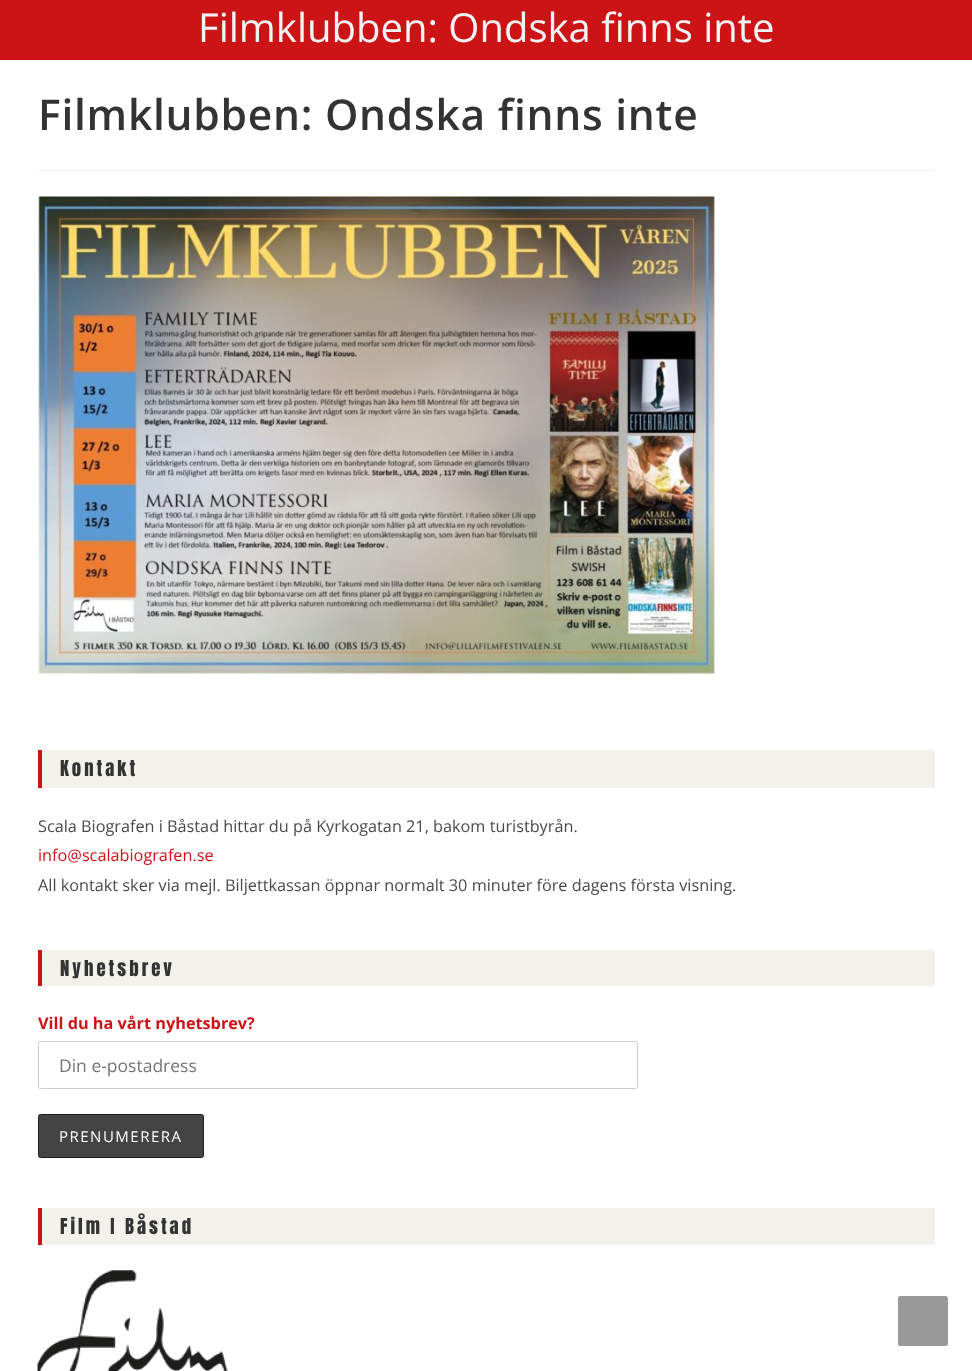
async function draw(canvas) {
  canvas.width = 972
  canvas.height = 1371
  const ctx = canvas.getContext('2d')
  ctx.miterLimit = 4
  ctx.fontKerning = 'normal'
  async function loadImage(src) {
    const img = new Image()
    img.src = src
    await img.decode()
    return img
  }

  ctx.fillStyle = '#fff'
  ctx.fillRect(0, 0, 972, 1371)
  ctx.fillStyle = '#cc1417'
  ctx.fillRect(0, 0, 972, 60)
  ctx.font = '40px Open Sans'
  ctx.fillStyle = '#f4f4f4'
  ctx.fillText('Filmklubben: Ondska finns inte', 198, 42)
  ctx.fillStyle = '#f1f1f1'
  ctx.fillRect(38, 170, 897, 1)
  ctx.letterSpacing = '0.75px'
  ctx.font = '600 42.5px Open Sans'
  ctx.fillStyle = '#333'
  ctx.fillText('Filmklubben: Ondska finns inte', 38, 130)
  ctx.drawImage(await loadImage('image0.png'), 37, 196, 678, 480)
  ctx.fillStyle = '#f2f1ea'
  ctx.fillRect(42, 750, 893, 38)
  ctx.fillStyle = '#cc1417'
  ctx.fillRect(38, 750, 4, 38)
  ctx.letterSpacing = '3px'
  ctx.font = '18.75px Anton'
  ctx.fillStyle = '#333'
  ctx.fillText('Kontakt', 60, 776)
  ctx.letterSpacing = '0px'
  ctx.font = '16.25px Open Sans'
  ctx.fillStyle = '#4a4a4a'
  ctx.fillText('Scala Biografen i Båstad hittar du på Kyrkogatan 21, bakom turistbyrån.', 38, 832)
  ctx.fillStyle = '#cc1417'
  ctx.fillText('info@scalabiografen.se', 38, 861)
  ctx.fillStyle = '#4a4a4a'
  ctx.fillText('All kontakt sker via mejl. Biljettkassan öppnar normalt 30 minuter före dagens första visning.', 38, 891)
  ctx.fillStyle = '#f2f1ea'
  ctx.fillRect(42, 950, 893, 36)
  ctx.fillStyle = '#cc1417'
  ctx.fillRect(38, 950, 4, 36)
  ctx.letterSpacing = '3px'
  ctx.font = '18.75px Anton'
  ctx.fillStyle = '#333'
  ctx.fillText('Nyhetsbrev', 60, 976)
  ctx.letterSpacing = '0px'
  ctx.font = 'bold 16.25px Open Sans'
  ctx.fillStyle = '#cc1417'
  ctx.fillText('Vill du ha vårt nyhetsbrev?', 38, 1029)
  ctx.beginPath()
  ctx.roundRect(38.5, 1041.5, 599, 47, 2)
  ctx.strokeStyle = '#ccc'
  ctx.stroke()
  ctx.font = '17.5px Open Sans'
  ctx.fillStyle = '#757575'
  ctx.fillText('Din e-postadress', 59, 1072)
  ctx.fillStyle = '#444'
  ctx.beginPath()
  ctx.roundRect(38.5, 1114.5, 165, 43, 2)
  ctx.fill()
  ctx.strokeStyle = '#1e1e1e'
  ctx.stroke()
  ctx.letterSpacing = '1.5px'
  ctx.font = '15px Open Sans'
  ctx.fillStyle = '#fff'
  ctx.fillText('PRENUMERERA', 59, 1142)
  ctx.fillStyle = '#f2f1ea'
  ctx.fillRect(42, 1208, 893, 37)
  ctx.fillStyle = '#cc1417'
  ctx.fillRect(38, 1208, 4, 37)
  ctx.letterSpacing = '3px'
  ctx.font = '18.75px Anton'
  ctx.fillStyle = '#333'
  ctx.fillText('Film I Båstad', 60, 1234)
  ctx.drawImage(await loadImage('image1.png'), 37, 1270, 191, 101)
  ctx.fillStyle = '#999'
  ctx.beginPath()
  ctx.roundRect(898, 1296, 50, 50, 2.5)
  ctx.fill()
}

draw(document.querySelector('canvas'))
